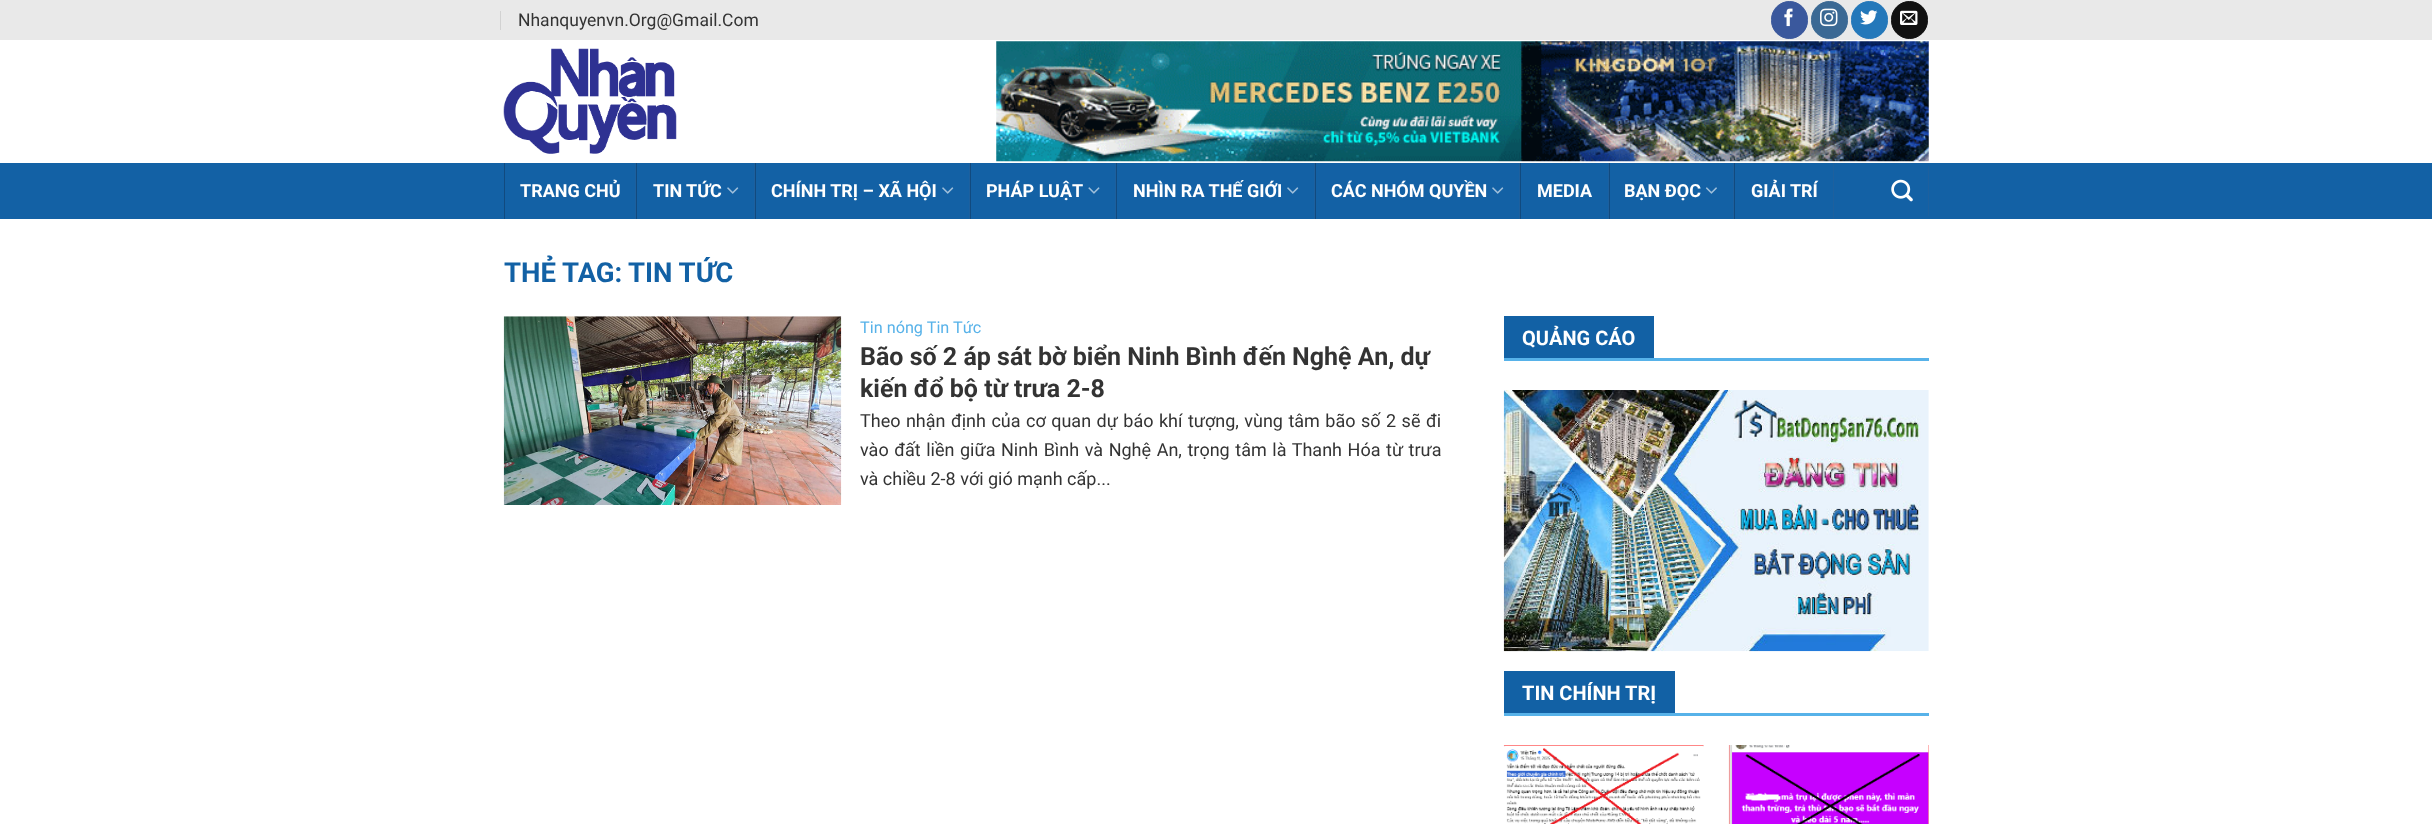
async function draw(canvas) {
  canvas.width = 2432
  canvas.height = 824
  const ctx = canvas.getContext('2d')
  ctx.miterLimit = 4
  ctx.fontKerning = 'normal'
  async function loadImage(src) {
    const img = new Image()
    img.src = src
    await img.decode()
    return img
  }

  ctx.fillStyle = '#fff'
  ctx.fillRect(0, 0, 2432, 824)
  ctx.fillStyle = '#e9e9e9'
  ctx.fillRect(0, 0, 2432, 40)
  ctx.fillStyle = '#d2d2d2'
  ctx.fillRect(500, 11, 1, 19)
  ctx.font = '17.5px Roboto'
  ctx.fillStyle = '#333'
  ctx.fillText('Nhanquyenvn.Org@Gmail.Com', 518, 26)
  ctx.fillStyle = '#3a589d'
  ctx.beginPath()
  ctx.roundRect(1771.5, 1.5, 36, 37, 18)
  ctx.fill()
  ctx.strokeStyle = '#3a589d'
  ctx.stroke()
  ctx.drawImage(await loadImage('image0.png'), 1784, 8, 9, 19)
  ctx.fillStyle = '#3b6994'
  ctx.beginPath()
  ctx.roundRect(1811.5, 1.5, 36, 37, 18)
  ctx.fill()
  ctx.strokeStyle = '#3b6994'
  ctx.stroke()
  ctx.drawImage(await loadImage('image1.png'), 1820, 8, 18, 19)
  ctx.fillStyle = '#2478ba'
  ctx.beginPath()
  ctx.roundRect(1851.5, 1.5, 36, 37, 18)
  ctx.fill()
  ctx.strokeStyle = '#2478ba'
  ctx.stroke()
  ctx.drawImage(await loadImage('image2.png'), 1860, 10, 18, 15)
  ctx.fillStyle = '#111'
  ctx.beginPath()
  ctx.roundRect(1891.5, 1.5, 36, 37, 18)
  ctx.fill()
  ctx.strokeStyle = '#111'
  ctx.stroke()
  ctx.drawImage(await loadImage('image3.png'), 1900, 10, 18, 15)
  ctx.drawImage(await loadImage('image4.png'), 503, 48, 174, 106)
  ctx.drawImage(await loadImage('image5.png'), 996, 41, 933, 121)
  ctx.fillStyle = '#1361a5'
  ctx.fillRect(0, 163, 2432, 56)
  ctx.fillStyle = '#1d609e'
  ctx.fillRect(635, 163, 1, 56)
  ctx.fillStyle = '#114a7f'
  ctx.fillRect(504, 163, 1, 56)
  ctx.font = 'bold 18px Roboto'
  ctx.fillStyle = '#fff'
  ctx.fillText('TRANG CHỦ', 520, 197)
  ctx.fillStyle = '#1d609e'
  ctx.fillRect(754, 163, 1, 56)
  ctx.fillStyle = '#114a7f'
  ctx.fillRect(636, 163, 1, 56)
  ctx.fillStyle = '#fff'
  ctx.fillText('TIN TỨC', 653, 197)
  ctx.drawImage(await loadImage('image6.png'), 727, 187, 12, 7)
  ctx.fillStyle = '#1d609e'
  ctx.fillRect(969, 163, 1, 56)
  ctx.fillStyle = '#114a7f'
  ctx.fillRect(755, 163, 1, 56)
  ctx.fillStyle = '#fff'
  ctx.fillText('CHÍNH TRỊ – XÃ HỘI', 771, 197)
  ctx.drawImage(await loadImage('image6.png'), 942, 187, 12, 7)
  ctx.fillStyle = '#1d609e'
  ctx.fillRect(1115, 163, 1, 56)
  ctx.fillStyle = '#114a7f'
  ctx.fillRect(970, 163, 1, 56)
  ctx.fillStyle = '#fff'
  ctx.fillText('PHÁP LUẬT', 986, 197)
  ctx.drawImage(await loadImage('image7.png'), 1088, 187, 12, 7)
  ctx.fillStyle = '#1d609e'
  ctx.fillRect(1314, 163, 1, 56)
  ctx.fillStyle = '#114a7f'
  ctx.fillRect(1116, 163, 1, 56)
  ctx.fillStyle = '#fff'
  ctx.fillText('NHÌN RA THẾ GIỚI', 1133, 197)
  ctx.drawImage(await loadImage('image6.png'), 1287, 187, 12, 7)
  ctx.fillStyle = '#1d609e'
  ctx.fillRect(1519, 163, 1, 56)
  ctx.fillStyle = '#114a7f'
  ctx.fillRect(1315, 163, 1, 56)
  ctx.fillStyle = '#fff'
  ctx.fillText('CÁC NHÓM QUYỀN', 1331, 197)
  ctx.drawImage(await loadImage('image6.png'), 1492, 187, 12, 7)
  ctx.fillStyle = '#1d609e'
  ctx.fillRect(1608, 163, 1, 56)
  ctx.fillStyle = '#114a7f'
  ctx.fillRect(1520, 163, 1, 56)
  ctx.fillStyle = '#fff'
  ctx.fillText('MEDIA', 1537, 197)
  ctx.fillStyle = '#1d609e'
  ctx.fillRect(1733, 163, 1, 56)
  ctx.fillStyle = '#114a7f'
  ctx.fillRect(1609, 163, 1, 56)
  ctx.fillStyle = '#fff'
  ctx.fillText('BẠN ĐỌC', 1624, 197)
  ctx.drawImage(await loadImage('image8.png'), 1705, 187, 12, 7)
  ctx.fillStyle = '#1d609e'
  ctx.fillRect(1833, 163, 1, 56)
  ctx.fillStyle = '#114a7f'
  ctx.fillRect(1734, 163, 1, 56)
  ctx.fillStyle = '#fff'
  ctx.fillText('GIẢI TRÍ', 1751, 197)
  ctx.fillStyle = '#1d609e'
  ctx.fillRect(1928, 166, 1, 50)
  ctx.drawImage(await loadImage('image9.png'), 1891, 179, 22, 23)
  ctx.font = 'bold 27.5px Roboto'
  ctx.fillStyle = '#1261a5'
  ctx.fillText('THẺ TAG:', 504, 282)
  ctx.fillText('TIN TỨC', 628, 282)
  ctx.drawImage(await loadImage('image10.png'), 503, 316, 339, 189)
  ctx.font = '16.25px Roboto'
  ctx.fillStyle = '#57b2e9'
  ctx.fillText('Tin nóng Tin Tức', 860, 333)
  ctx.font = 'bold 25px Roboto'
  ctx.fillStyle = '#333'
  ctx.fillText('Bão số 2 áp sát bờ biển Ninh Bình đến Nghệ An, dự', 860, 365)
  ctx.fillText('kiến đổ bộ từ trưa 2-8', 860, 397)
  ctx.wordSpacing = '1px'
  ctx.font = '18px Roboto'
  ctx.fillText('Theo nhận định của cơ quan dự báo khí tượng, vùng tâm bão số 2 sẽ đi', 860, 427)
  ctx.wordSpacing = '1.1px'
  ctx.fillText('vào đất liền giữa Ninh Bình và Nghệ An, trọng tâm là Thanh Hóa từ trưa', 860, 456)
  ctx.wordSpacing = '0px'
  ctx.fillText('và chiều 2-8 với gió mạnh cấp...', 860, 485)
  ctx.fillStyle = '#57b2e9'
  ctx.fillRect(1504, 358, 425, 3)
  ctx.fillStyle = '#1261a5'
  ctx.fillRect(1504, 316, 150, 42)
  ctx.font = 'bold 20px Roboto'
  ctx.fillStyle = '#fff'
  ctx.fillText('QUẢNG CÁO', 1522, 345)
  ctx.drawImage(await loadImage('image11.png'), 1503, 390, 426, 262)
  ctx.fillStyle = '#57b2e9'
  ctx.fillRect(1504, 713, 425, 3)
  ctx.fillStyle = '#1261a5'
  ctx.fillRect(1504, 671, 171, 42)
  ctx.fillStyle = '#fff'
  ctx.fillText('TIN CHÍNH TRỊ', 1522, 700)
  ctx.drawImage(await loadImage('image12.png'), 1503, 745, 201, 79)
  ctx.drawImage(await loadImage('image13.png'), 1728, 745, 201, 79)
}

draw(document.querySelector('canvas'))
